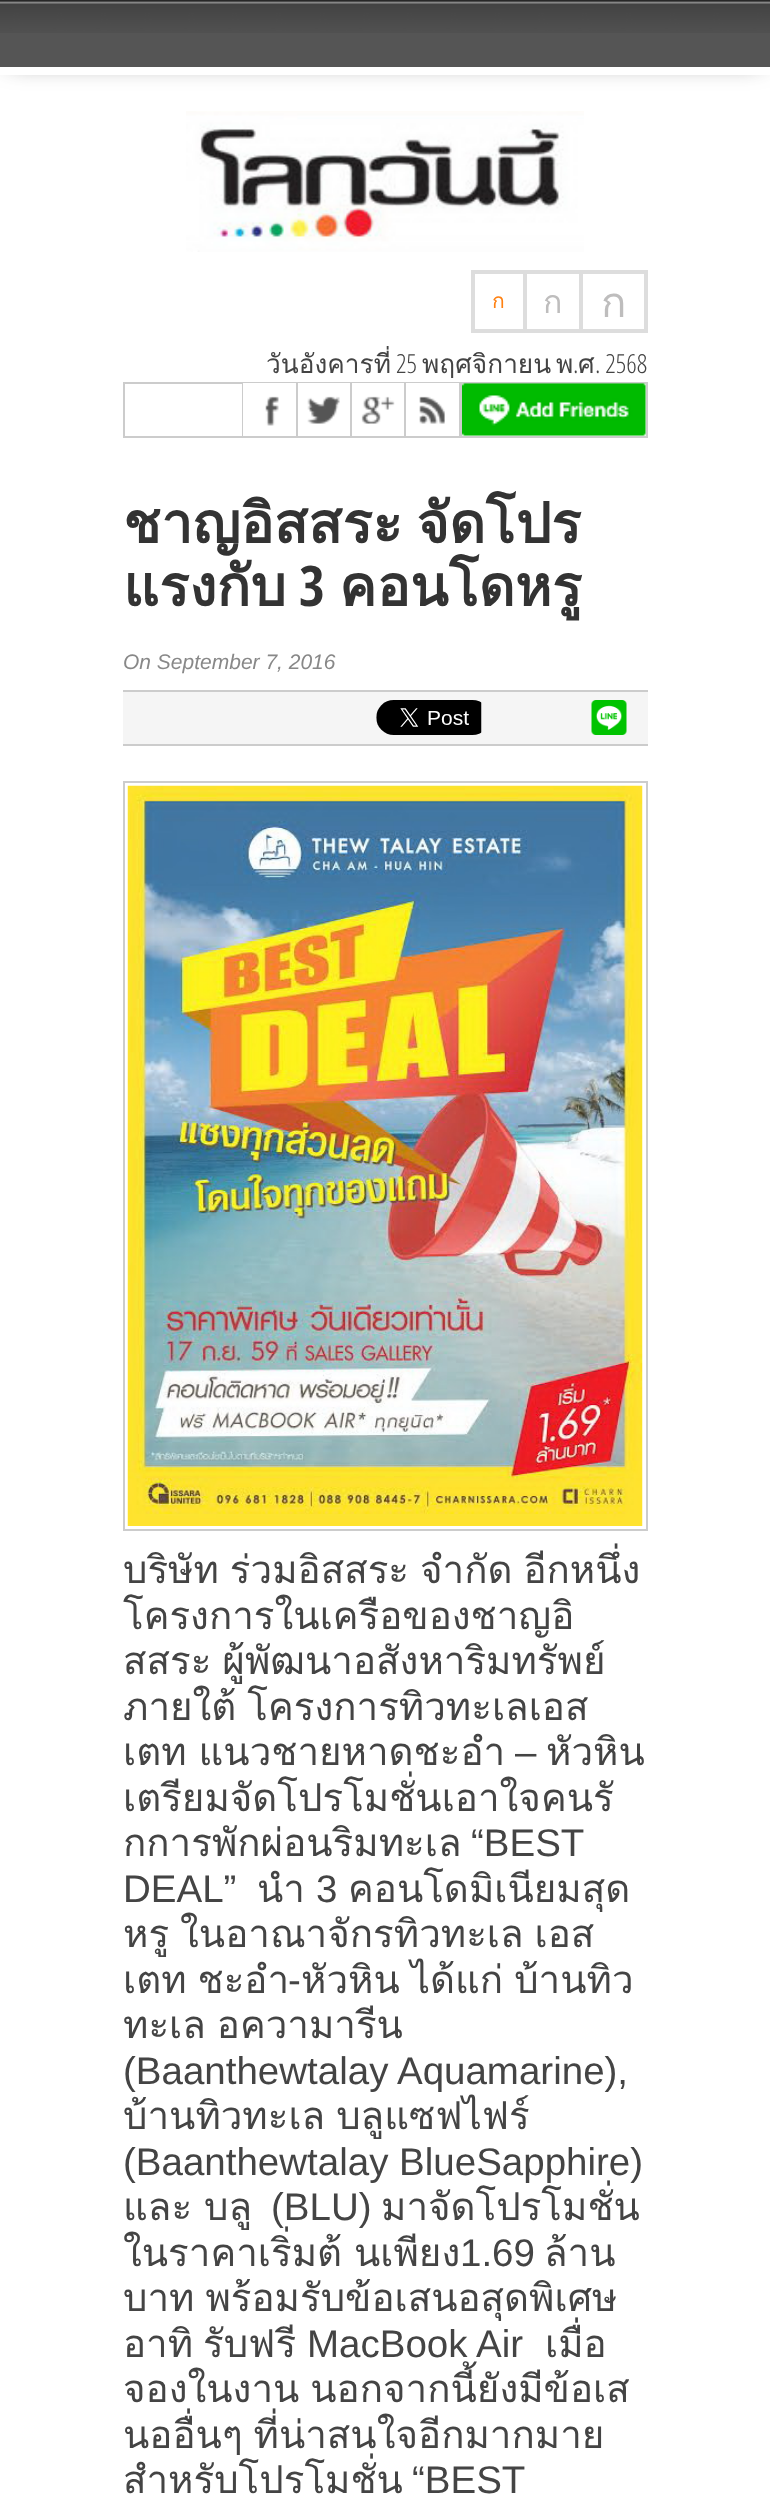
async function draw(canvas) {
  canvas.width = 770
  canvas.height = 2500
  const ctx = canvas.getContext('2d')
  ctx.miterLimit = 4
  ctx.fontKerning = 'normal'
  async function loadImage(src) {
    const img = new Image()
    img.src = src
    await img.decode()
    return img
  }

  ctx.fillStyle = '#fff'
  ctx.fillRect(0, 0, 770, 2500)
  ctx.fillStyle = '#555'
  ctx.filter = 'blur(13px)'
  ctx.beginPath()
  ctx.rect(9, 2, 752, 58)
  ctx.fill()
  ctx.filter = 'none'
  ctx.fillRect(0, 0, 770, 67)
  ctx.drawImage(await loadImage('image0.png'), 0, 0, 770, 33)
  ctx.fillStyle = '#fff'
  ctx.fillRect(0, 67, 770, 8)
  ctx.drawImage(await loadImage('image1.png'), 186, 111, 398, 141)
  ctx.fillStyle = '#ddd'
  ctx.fillRect(471, 270, 108, 4)
  ctx.fillRect(471, 329, 108, 4)
  ctx.fillRect(471, 270, 4, 63)
  ctx.font = '21px Loma'
  ctx.fillStyle = '#ff8112'
  ctx.fillText('ก', 492, 308)
  ctx.fillStyle = '#ddd'
  ctx.fillRect(523, 270, 4, 63)
  ctx.font = '32px Loma'
  ctx.fillStyle = '#bebdbd'
  ctx.fillText('ก', 543, 313)
  ctx.strokeStyle = '#ddd'
  ctx.lineWidth = 4
  ctx.strokeRect(581, 272, 65, 59)
  ctx.font = '42px Loma'
  ctx.fillText('ก', 601, 317)
  ctx.font = '26.25px Loma'
  ctx.fillStyle = '#444'
  ctx.fillText('วันอังคารที่', 266, 373)
  ctx.font = '300 26.25px Open Sans Condensed'
  ctx.fillText('25', 396, 373)
  ctx.font = '26.25px Loma'
  ctx.fillText('พฤศจิกายน', 422, 373)
  ctx.fillText('พ', 556, 373)
  ctx.font = '300 26.25px Open Sans Condensed'
  ctx.fillText('.', 573, 373)
  ctx.font = '26.25px Loma'
  ctx.fillText('ศ', 578, 373)
  ctx.font = '300 26.25px Open Sans Condensed'
  ctx.fillText('. 2568', 595, 373)
  ctx.strokeStyle = '#ccc'
  ctx.lineWidth = 2
  ctx.strokeRect(124, 383, 523, 54)
  ctx.fillStyle = '#ccc'
  ctx.fillRect(296, 383, 2, 53)
  ctx.fillRect(242, 383, 1, 53)
  ctx.fillStyle = '#fff'
  ctx.fillRect(243, 383, 53, 1)
  ctx.drawImage(await loadImage('image2.png'), 265, 396, 14, 30)
  ctx.fillStyle = '#ccc'
  ctx.fillRect(350, 383, 2, 53)
  ctx.fillStyle = '#fff'
  ctx.fillRect(298, 383, 52, 1)
  ctx.drawImage(await loadImage('image3.png'), 307, 396, 33, 28)
  ctx.fillStyle = '#ccc'
  ctx.fillRect(404, 383, 2, 53)
  ctx.fillStyle = '#fff'
  ctx.fillRect(352, 383, 52, 1)
  ctx.drawImage(await loadImage('image4.png'), 361, 396, 34, 28)
  ctx.fillStyle = '#ccc'
  ctx.fillRect(459, 383, 3, 53)
  ctx.fillStyle = '#fff'
  ctx.fillRect(406, 383, 53, 1)
  ctx.drawImage(await loadImage('image5.png'), 419, 396, 26, 28)
  ctx.drawImage(await loadImage('image6.png'), 462, 383, 184, 53)
  ctx.wordSpacing = '-5px'
  ctx.font = 'bold 56px Loma'
  ctx.fillStyle = '#333'
  ctx.fillText('ชาญอิสสระ จัดโปร', 123, 543)
  ctx.wordSpacing = '0px'
  ctx.fillText('แรงกับ', 123, 606)
  ctx.font = 'bold 56px Open Sans Condensed'
  ctx.fillText('3', 299, 606)
  ctx.font = 'bold 56px Loma'
  ctx.fillText('คอนโดหรู', 339, 606)
  ctx.font = 'italic 21px Liberation Sans'
  ctx.fillStyle = '#888'
  ctx.fillText('On September 7, 2016', 123, 669)
  ctx.fillStyle = '#f5f5f5'
  ctx.fillRect(123, 692, 525, 52)
  ctx.fillStyle = '#ccc'
  ctx.fillRect(123, 690, 525, 2)
  ctx.fillRect(123, 744, 525, 2)
  ctx.drawImage(await loadImage('image7.png'), 376, 700, 106, 35)
  ctx.drawImage(await loadImage('image8.png'), 591, 700, 36, 35)
  ctx.strokeRect(124, 782, 523, 748)
  ctx.drawImage(await loadImage('image9.png'), 127, 785, 516, 741)
  ctx.wordSpacing = '-2px'
  ctx.font = '38.5px Loma'
  ctx.fillStyle = '#444'
  ctx.fillText('บริษัท ร่วมอิสสระ จำกัด อีกหนึ่ง', 123, 1583)
  ctx.wordSpacing = '0px'
  ctx.fillText('โครงการในเครือของชาญอิ', 123, 1629)
  ctx.wordSpacing = '-2px'
  ctx.fillText('สสระ ผู้พัฒนาอสังหาริมทรัพย์', 123, 1674)
  ctx.fillText('ภายใต้ โครงการทิวทะเลเอส', 123, 1720)
  ctx.wordSpacing = '-1px'
  ctx.fillText('เตท แนวชายหาดชะอำ', 123, 1765)
  ctx.wordSpacing = '0px'
  ctx.font = '38.5px Liberation Sans'
  ctx.fillText('–', 515, 1765)
  ctx.font = '38.5px Loma'
  ctx.fillText('หัวหิน', 546, 1765)
  ctx.fillText('เตรียมจัดโปรโมชั่นเอาใจคนรั', 123, 1811)
  ctx.fillText('กการพักผ่อนริมทะเล', 123, 1856)
  ctx.font = '38.5px Liberation Sans'
  ctx.fillText('“BEST', 471, 1856)
  ctx.fillText('DEAL”', 123, 1902)
  ctx.font = '38.5px Loma'
  ctx.fillText('นำ', 257, 1902)
  ctx.font = '38.5px Liberation Sans'
  ctx.fillText('3', 316, 1902)
  ctx.font = '38.5px Loma'
  ctx.fillText('คอนโดมิเนียมสุด', 348, 1902)
  ctx.wordSpacing = '-2px'
  ctx.fillText('หรู ในอาณาจักรทิวทะเล เอส', 123, 1947)
  ctx.fillText('เตท ชะอำ', 123, 1993)
  ctx.wordSpacing = '0px'
  ctx.font = '38.5px Liberation Sans'
  ctx.fillText('-', 288, 1993)
  ctx.wordSpacing = '-2px'
  ctx.font = '38.5px Loma'
  ctx.fillText('หัวหิน ได้แก่ บ้านทิว', 301, 1993)
  ctx.fillText('ทะเล อความารีน', 123, 2038)
  ctx.wordSpacing = '0px'
  ctx.font = '38.5px Liberation Sans'
  ctx.fillText('(Baanthewtalay Aquamarine),', 123, 2084)
  ctx.save()
  ctx.beginPath()
  ctx.rect(123, 473, 525, 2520)
  ctx.clip()
  ctx.wordSpacing = '-2px'
  ctx.font = '38.5px Loma'
  ctx.fillText('บ้านทิวทะเล บลูแซฟไฟร์', 123, 2129)
  ctx.restore()
  ctx.fillText('(Baanthewtalay BlueSapphire)', 123, 2175)
  ctx.wordSpacing = '-1px'
  ctx.font = '38.5px Loma'
  ctx.fillText('และ บลู', 123, 2220)
  ctx.wordSpacing = '0px'
  ctx.font = '38.5px Liberation Sans'
  ctx.fillText('(BLU)', 271, 2220)
  ctx.font = '38.5px Loma'
  ctx.fillText('มาจัดโปรโมชั่น', 381, 2220)
  ctx.wordSpacing = '-1px'
  ctx.fillText('ในราคาเริ่มต้ นเพียง', 123, 2266)
  ctx.wordSpacing = '0px'
  ctx.font = '38.5px Liberation Sans'
  ctx.fillText('1.69', 460, 2266)
  ctx.font = '38.5px Loma'
  ctx.fillText('ล้าน', 544, 2266)
  ctx.wordSpacing = '-2px'
  ctx.fillText('บาท พร้อมรับข้อเสนอสุดพิเศษ', 123, 2311)
  ctx.wordSpacing = '0px'
  ctx.fillText('อาทิ', 123, 2357)
  ctx.fillText('รับฟรี', 203, 2357)
  ctx.font = '38.5px Liberation Sans'
  ctx.fillText('MacBook Air', 307, 2357)
  ctx.font = '38.5px Loma'
  ctx.fillText('เมื่อ', 545, 2357)
  ctx.wordSpacing = '-2px'
  ctx.fillText('จองในงาน นอกจากนี้ยังมีข้อเส', 123, 2402)
  ctx.fillText('นออื่นๆ ที่น่าสนใจอีกมากมาย', 123, 2448)
  ctx.save()
  ctx.beginPath()
  ctx.rect(123, 473, 525, 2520)
  ctx.clip()
  ctx.wordSpacing = '0px'
  ctx.fillText('สำหรับโปรโมชั่น', 123, 2493)
  ctx.restore()
  ctx.wordSpacing = '0px'
  ctx.font = '38.5px Liberation Sans'
  ctx.fillText('“BEST', 412, 2493)
}

draw(document.querySelector('canvas'))
